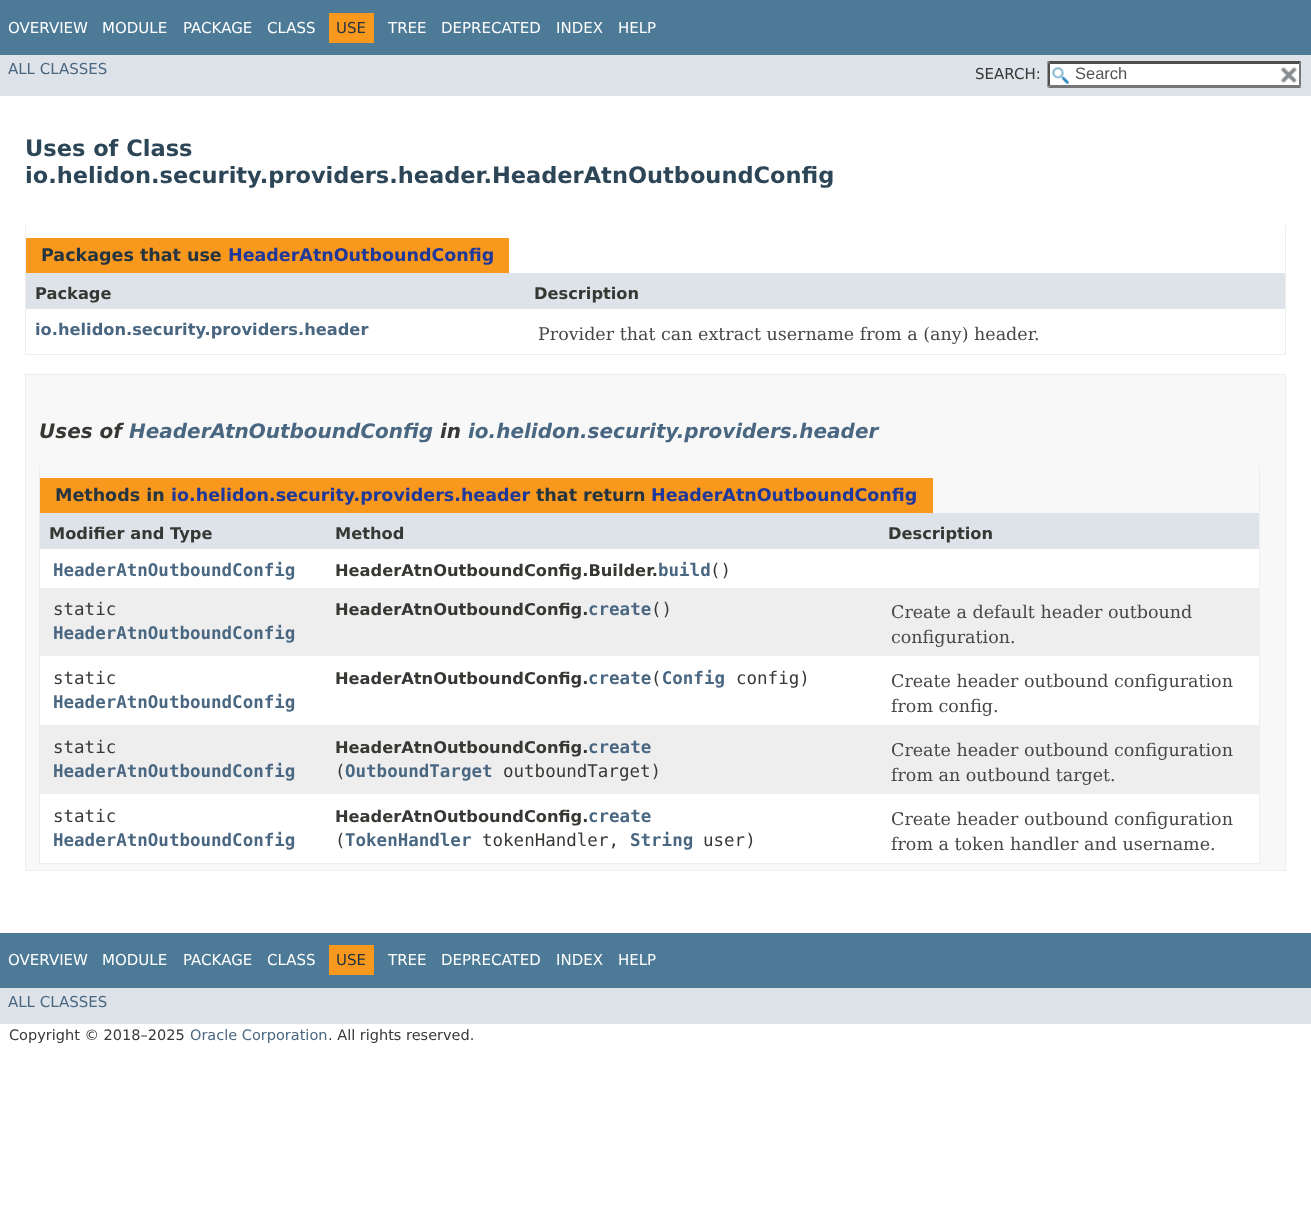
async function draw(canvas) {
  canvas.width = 1311
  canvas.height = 1227
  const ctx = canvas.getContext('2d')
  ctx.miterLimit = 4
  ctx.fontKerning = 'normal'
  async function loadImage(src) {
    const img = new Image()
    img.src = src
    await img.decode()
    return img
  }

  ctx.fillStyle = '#fff'
  ctx.fillRect(0, 0, 1311, 1227)
  ctx.fillStyle = '#4d7a97'
  ctx.fillRect(0, 0, 1311, 55)
  ctx.font = '15px DejaVu Sans'
  ctx.fillStyle = '#fff'
  ctx.fillText('OVERVIEW', 8, 33)
  ctx.fillText('MODULE', 102, 33)
  ctx.fillText('PACKAGE', 183, 33)
  ctx.fillText('CLASS', 267, 33)
  ctx.fillStyle = '#f8981d'
  ctx.fillRect(329, 13, 45, 30)
  ctx.fillStyle = '#253441'
  ctx.fillText('USE', 336, 33)
  ctx.fillStyle = '#fff'
  ctx.fillText('TREE', 388, 33)
  ctx.fillText('DEPRECATED', 441, 33)
  ctx.fillText('INDEX', 556, 33)
  ctx.fillText('HELP', 618, 33)
  ctx.fillStyle = '#dee3e9'
  ctx.fillRect(0, 55, 1311, 41)
  ctx.fillStyle = '#4a6782'
  ctx.fillText('ALL CLASSES', 8, 74)
  ctx.fillStyle = '#353833'
  ctx.fillText('SEARCH:', 975, 79)
  ctx.fillStyle = '#fff'
  ctx.fillRect(1048, 61, 253, 27)
  ctx.drawImage(await loadImage('image0.png'), 1052, 67, 17, 17)
  ctx.fillStyle = '#4f4f4f'
  ctx.beginPath()
  ctx.moveTo(1048, 61)
  ctx.lineTo(1301, 61)
  ctx.lineTo(1299, 64)
  ctx.lineTo(1050, 64)
  ctx.closePath()
  ctx.fill()
  ctx.fillStyle = '#767676'
  ctx.beginPath()
  ctx.moveTo(1301, 61)
  ctx.lineTo(1301, 87.5)
  ctx.lineTo(1299, 85)
  ctx.lineTo(1299, 64)
  ctx.closePath()
  ctx.fill()
  ctx.beginPath()
  ctx.moveTo(1301, 88)
  ctx.lineTo(1048, 88)
  ctx.lineTo(1050, 85)
  ctx.lineTo(1299, 85)
  ctx.closePath()
  ctx.fill()
  ctx.fillStyle = '#4f4f4f'
  ctx.beginPath()
  ctx.moveTo(1047.5, 87.5)
  ctx.lineTo(1047.5, 61)
  ctx.lineTo(1050, 64)
  ctx.lineTo(1050, 85)
  ctx.closePath()
  ctx.fill()
  ctx.font = '16.5px Liberation Sans'
  ctx.fillStyle = '#545454'
  ctx.fillText('Search', 1075, 79)
  ctx.drawImage(await loadImage('image1.png'), 1280, 67, 17, 16)
  ctx.font = 'bold 22.5px DejaVu Sans'
  ctx.fillStyle = '#2c4557'
  ctx.fillText('Uses of Class', 25, 156)
  ctx.fillText('io.helidon.security.providers.header.HeaderAtnOutboundConfig', 25, 183)
  ctx.fillStyle = '#eee'
  ctx.fillRect(1285, 225, 1, 130)
  ctx.fillRect(25, 354, 1261, 1)
  ctx.fillRect(25, 225, 1, 130)
  ctx.fillStyle = '#f8981d'
  ctx.fillRect(26, 238, 483, 35)
  ctx.font = 'bold 17.5px DejaVu Sans'
  ctx.fillStyle = '#253441'
  ctx.fillText('Packages that use', 41, 261)
  ctx.fillStyle = '#1f389c'
  ctx.fillText('HeaderAtnOutboundConfig', 228, 261)
  ctx.fillStyle = '#dee3e9'
  ctx.fillRect(26, 273, 1259, 36)
  ctx.font = 'bold 16.25px DejaVu Sans'
  ctx.fillStyle = '#353833'
  ctx.fillText('Package', 35, 299)
  ctx.fillText('Description', 534, 299)
  ctx.fillStyle = '#4a6782'
  ctx.fillText('io.helidon.security.providers.header', 35, 335)
  ctx.font = '17.5px DejaVu Serif'
  ctx.fillStyle = '#474747'
  ctx.fillText('Provider that can extract username from a (any) header.', 538, 340)
  ctx.fillStyle = '#f8f8f8'
  ctx.beginPath()
  ctx.rect(25.5, 374.5, 1260, 496)
  ctx.fill()
  ctx.strokeStyle = '#ededed'
  ctx.stroke()
  ctx.font = 'italic bold 20px DejaVu Sans'
  ctx.fillStyle = '#353833'
  ctx.fillText('Uses of', 39, 438)
  ctx.fillStyle = '#4a6782'
  ctx.fillText('HeaderAtnOutboundConfig', 129, 438)
  ctx.fillStyle = '#353833'
  ctx.fillText('in', 440, 438)
  ctx.fillStyle = '#4a6782'
  ctx.fillText('io.helidon.security.providers.header', 468, 438)
  ctx.fillStyle = '#eee'
  ctx.fillRect(1259, 465, 1, 399)
  ctx.fillRect(39, 863, 1221, 1)
  ctx.fillRect(39, 465, 1, 399)
  ctx.fillStyle = '#f8981d'
  ctx.fillRect(40, 478, 893, 35)
  ctx.font = 'bold 17.5px DejaVu Sans'
  ctx.fillStyle = '#253441'
  ctx.fillText('Methods in', 55, 501)
  ctx.fillStyle = '#1f389c'
  ctx.fillText('io.helidon.security.providers.header', 171, 501)
  ctx.fillStyle = '#253441'
  ctx.fillText('that return', 536, 501)
  ctx.fillStyle = '#1f389c'
  ctx.fillText('HeaderAtnOutboundConfig', 651, 501)
  ctx.fillStyle = '#dee3e9'
  ctx.fillRect(40, 513, 1219, 36)
  ctx.font = 'bold 16.25px DejaVu Sans'
  ctx.fillStyle = '#353833'
  ctx.fillText('Modifier and Type', 49, 539)
  ctx.fillText('Method', 335, 539)
  ctx.fillText('Description', 888, 539)
  ctx.fillStyle = '#fff'
  ctx.fillRect(40, 549, 1219, 39)
  ctx.font = 'bold 17.5px DejaVu Sans Mono'
  ctx.fillStyle = '#4a6782'
  ctx.fillText('HeaderAtnOutboundConfig', 53, 576)
  ctx.font = 'bold 16.25px DejaVu Sans'
  ctx.fillStyle = '#353833'
  ctx.fillText('HeaderAtnOutboundConfig.Builder.', 335, 576)
  ctx.font = 'bold 17.5px DejaVu Sans Mono'
  ctx.fillStyle = '#4a6782'
  ctx.fillText('build', 658, 576)
  ctx.font = '17.5px DejaVu Sans Mono'
  ctx.fillStyle = '#353833'
  ctx.fillText('()', 710, 576)
  ctx.fillStyle = '#eeeeef'
  ctx.fillRect(40, 588, 1219, 68)
  ctx.fillStyle = '#353833'
  ctx.fillText('static', 53, 615)
  ctx.font = 'bold 17.5px DejaVu Sans Mono'
  ctx.fillStyle = '#4a6782'
  ctx.fillText('HeaderAtnOutboundConfig', 53, 639)
  ctx.font = 'bold 16.25px DejaVu Sans'
  ctx.fillStyle = '#353833'
  ctx.fillText('HeaderAtnOutboundConfig.', 335, 615)
  ctx.font = 'bold 17.5px DejaVu Sans Mono'
  ctx.fillStyle = '#4a6782'
  ctx.fillText('create', 588, 615)
  ctx.font = '17.5px DejaVu Sans Mono'
  ctx.fillStyle = '#353833'
  ctx.fillText('()', 651, 615)
  ctx.font = '17.5px DejaVu Serif'
  ctx.fillStyle = '#474747'
  ctx.fillText('Create a default header outbound', 891, 618)
  ctx.fillText('configuration.', 891, 643)
  ctx.fillStyle = '#fff'
  ctx.fillRect(40, 656, 1219, 69)
  ctx.font = '17.5px DejaVu Sans Mono'
  ctx.fillStyle = '#353833'
  ctx.fillText('static', 53, 684)
  ctx.font = 'bold 17.5px DejaVu Sans Mono'
  ctx.fillStyle = '#4a6782'
  ctx.fillText('HeaderAtnOutboundConfig', 53, 708)
  ctx.fillText('create Config', 588, 684)
  ctx.font = 'bold 16.25px DejaVu Sans'
  ctx.fillStyle = '#353833'
  ctx.fillText('HeaderAtnOutboundConfig.', 335, 684)
  ctx.font = '17.5px DejaVu Sans Mono'
  ctx.fillText('(', 651, 684)
  ctx.fillText('config)', 736, 684)
  ctx.font = '17.5px DejaVu Serif'
  ctx.fillStyle = '#474747'
  ctx.fillText('Create header outbound configuration', 891, 687)
  ctx.fillText('from config.', 891, 712)
  ctx.fillStyle = '#eeeeef'
  ctx.fillRect(40, 725, 1219, 69)
  ctx.font = '17.5px DejaVu Sans Mono'
  ctx.fillStyle = '#353833'
  ctx.fillText('static', 53, 753)
  ctx.font = 'bold 17.5px DejaVu Sans Mono'
  ctx.fillStyle = '#4a6782'
  ctx.fillText('HeaderAtnOutboundConfig', 53, 777)
  ctx.font = 'bold 16.25px DejaVu Sans'
  ctx.fillStyle = '#353833'
  ctx.fillText('HeaderAtnOutboundConfig.', 335, 753)
  ctx.font = 'bold 17.5px DejaVu Sans Mono'
  ctx.fillStyle = '#4a6782'
  ctx.fillText('create', 588, 753)
  ctx.font = '17.5px DejaVu Sans Mono'
  ctx.fillStyle = '#353833'
  ctx.fillText('(', 335, 777)
  ctx.font = 'bold 17.5px DejaVu Sans Mono'
  ctx.fillStyle = '#4a6782'
  ctx.fillText('OutboundTarget', 345, 777)
  ctx.font = '17.5px DejaVu Sans Mono'
  ctx.fillStyle = '#353833'
  ctx.fillText('outboundTarget)', 503, 777)
  ctx.font = '17.5px DejaVu Serif'
  ctx.fillStyle = '#474747'
  ctx.fillText('Create header outbound configuration', 891, 756)
  ctx.fillText('from an outbound target.', 891, 781)
  ctx.fillStyle = '#fff'
  ctx.fillRect(40, 794, 1219, 69)
  ctx.font = '17.5px DejaVu Sans Mono'
  ctx.fillStyle = '#353833'
  ctx.fillText('static', 53, 822)
  ctx.font = 'bold 17.5px DejaVu Sans Mono'
  ctx.fillStyle = '#4a6782'
  ctx.fillText('HeaderAtnOutboundConfig', 53, 846)
  ctx.font = 'bold 16.25px DejaVu Sans'
  ctx.fillStyle = '#353833'
  ctx.fillText('HeaderAtnOutboundConfig.', 335, 822)
  ctx.font = 'bold 17.5px DejaVu Sans Mono'
  ctx.fillStyle = '#4a6782'
  ctx.fillText('create', 588, 822)
  ctx.font = '17.5px DejaVu Sans Mono'
  ctx.fillStyle = '#353833'
  ctx.fillText('(', 335, 846)
  ctx.font = 'bold 17.5px DejaVu Sans Mono'
  ctx.fillStyle = '#4a6782'
  ctx.fillText('TokenHandler', 345, 846)
  ctx.font = '17.5px DejaVu Sans Mono'
  ctx.fillStyle = '#353833'
  ctx.fillText('tokenHandler,', 482, 846)
  ctx.font = 'bold 17.5px DejaVu Sans Mono'
  ctx.fillStyle = '#4a6782'
  ctx.fillText('String', 630, 846)
  ctx.font = '17.5px DejaVu Sans Mono'
  ctx.fillStyle = '#353833'
  ctx.fillText('user)', 703, 846)
  ctx.font = '17.5px DejaVu Serif'
  ctx.fillStyle = '#474747'
  ctx.fillText('Create header outbound configuration', 891, 825)
  ctx.fillText('from a token handler and username.', 891, 850)
  ctx.fillStyle = '#4d7a97'
  ctx.fillRect(0, 933, 1311, 55)
  ctx.font = '15px DejaVu Sans'
  ctx.fillStyle = '#fff'
  ctx.fillText('OVERVIEW', 8, 965)
  ctx.fillText('MODULE', 102, 965)
  ctx.fillText('PACKAGE', 183, 965)
  ctx.fillText('CLASS', 267, 965)
  ctx.fillStyle = '#f8981d'
  ctx.fillRect(329, 945, 45, 30)
  ctx.fillStyle = '#253441'
  ctx.fillText('USE', 336, 965)
  ctx.fillStyle = '#fff'
  ctx.fillText('TREE', 388, 965)
  ctx.fillText('DEPRECATED', 441, 965)
  ctx.fillText('INDEX', 556, 965)
  ctx.fillText('HELP', 618, 965)
  ctx.fillStyle = '#dee3e9'
  ctx.fillRect(0, 988, 1311, 36)
  ctx.fillStyle = '#4a6782'
  ctx.fillText('ALL CLASSES', 8, 1007)
  ctx.font = '14.5px DejaVu Sans'
  ctx.fillStyle = '#353833'
  ctx.fillText('Copyright © 2018–2025', 9, 1040)
  ctx.fillStyle = '#4a6782'
  ctx.fillText('Oracle Corporation', 190, 1040)
  ctx.fillStyle = '#353833'
  ctx.fillText('. All rights reserved.', 328, 1040)
}

draw(document.querySelector('canvas'))
